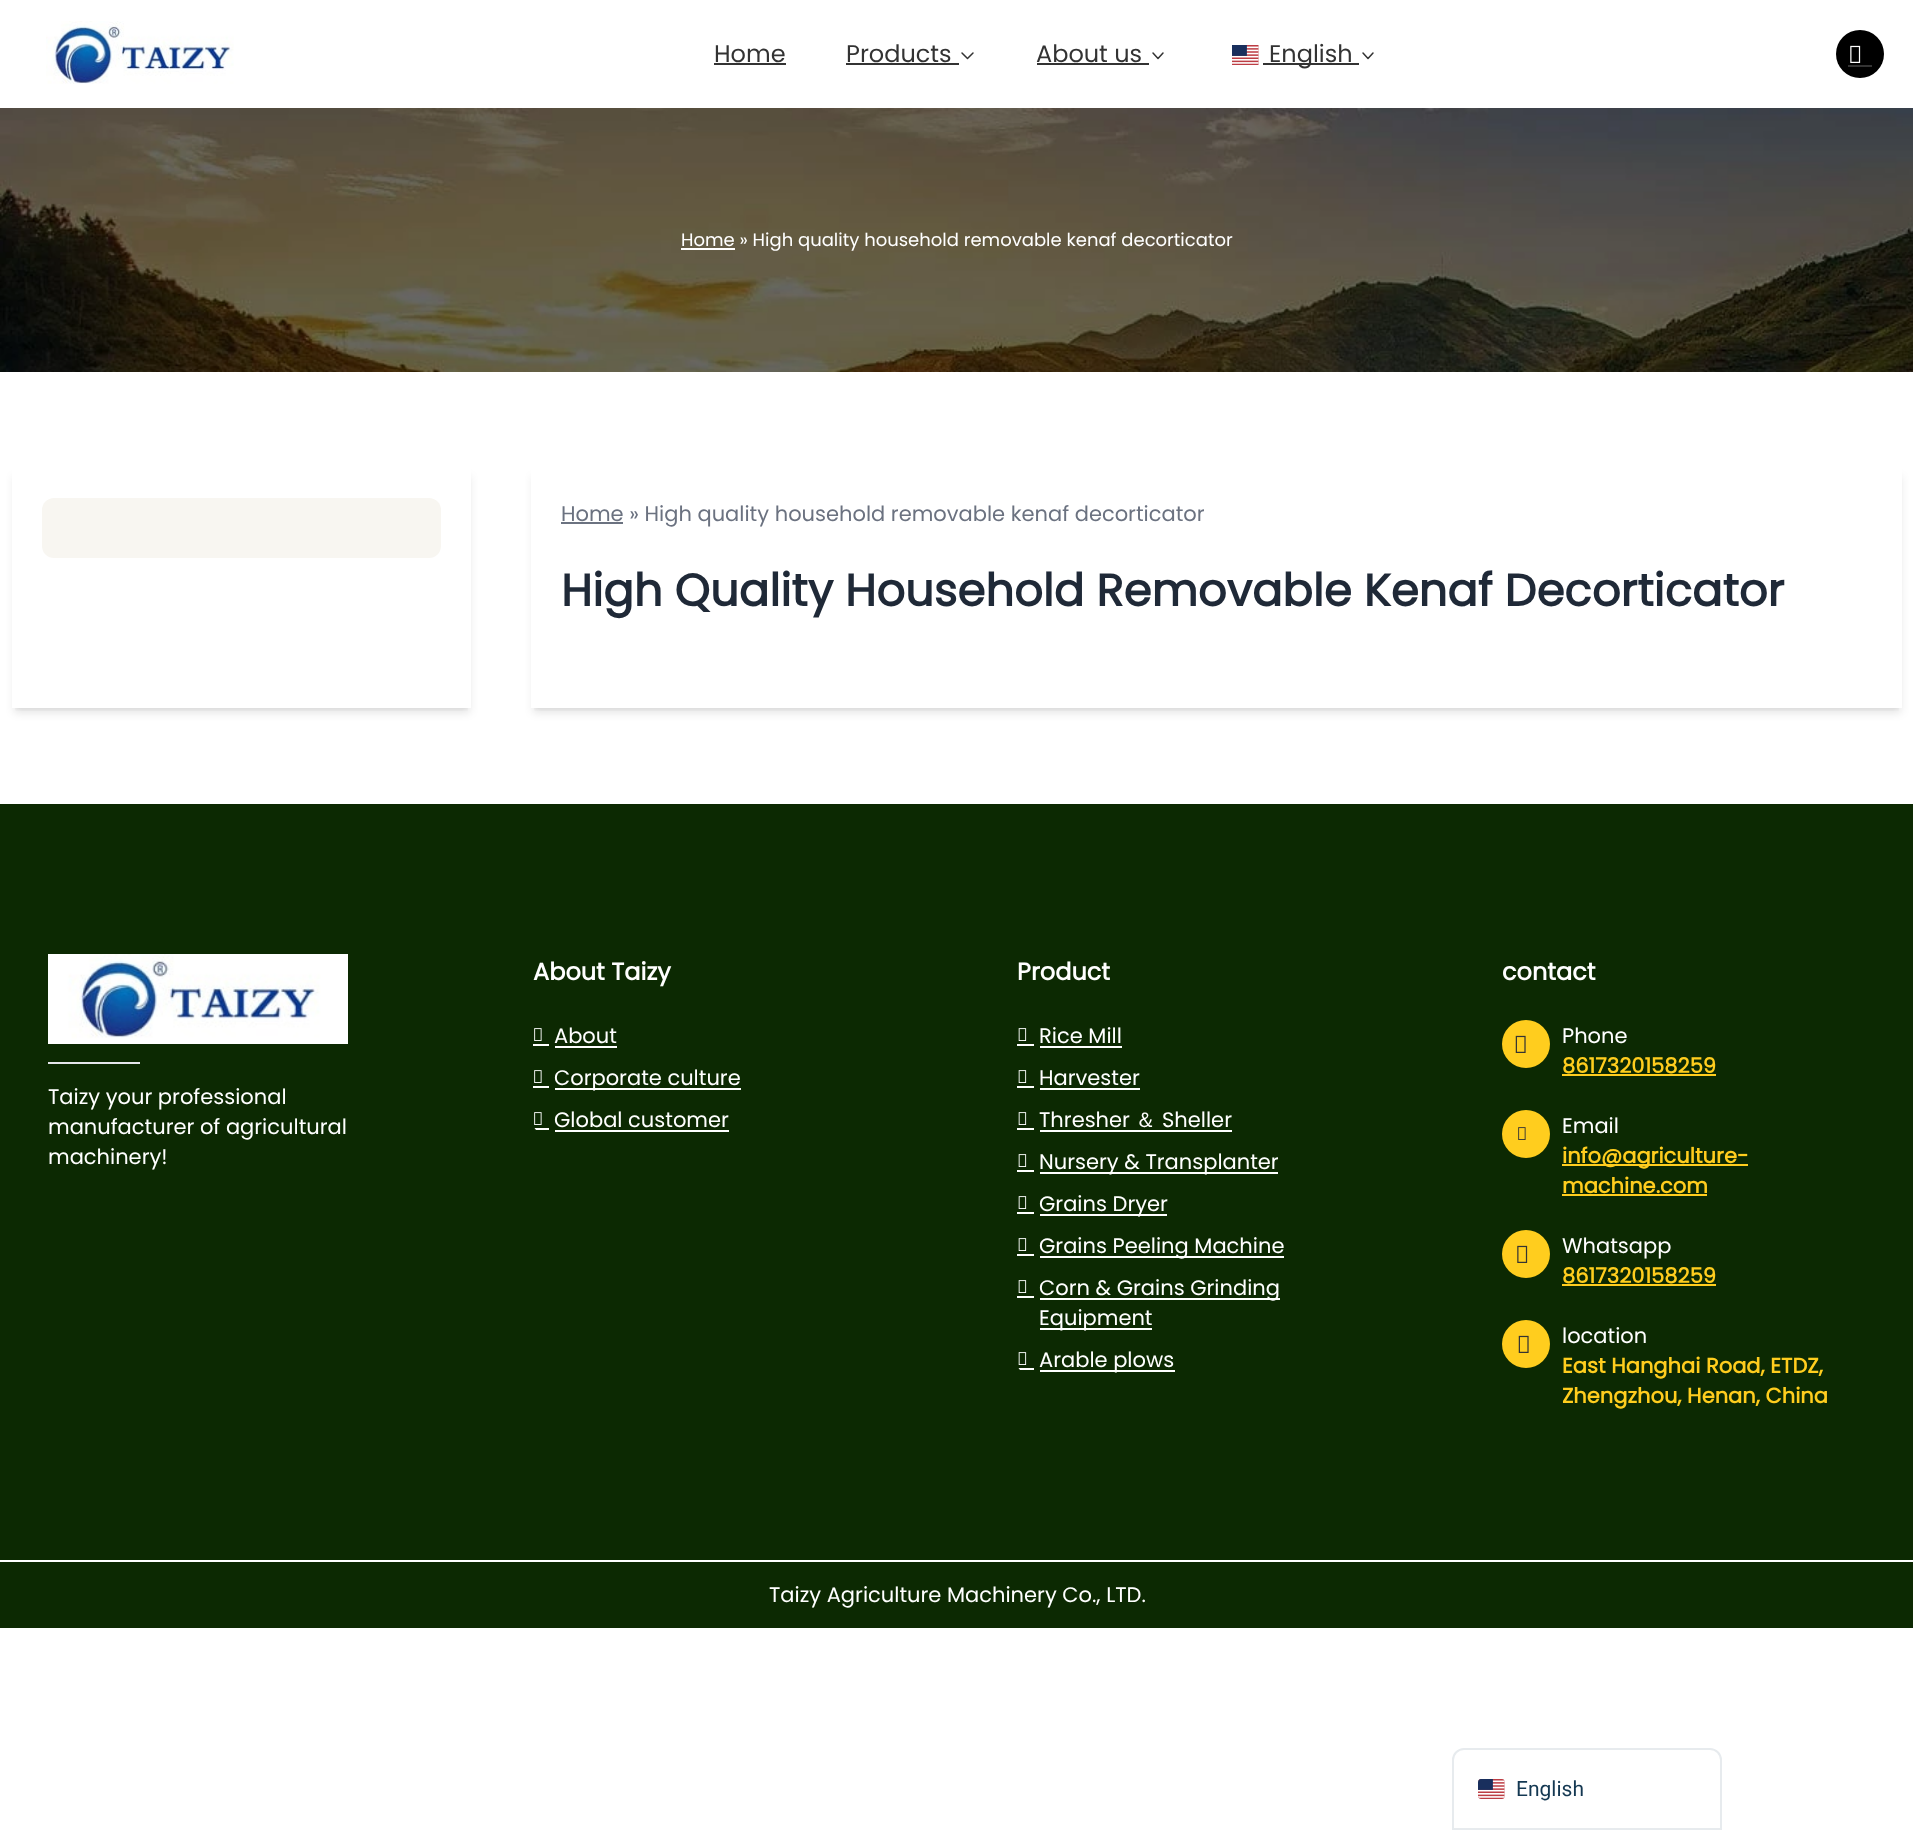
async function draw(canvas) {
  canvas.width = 1913
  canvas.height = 1830
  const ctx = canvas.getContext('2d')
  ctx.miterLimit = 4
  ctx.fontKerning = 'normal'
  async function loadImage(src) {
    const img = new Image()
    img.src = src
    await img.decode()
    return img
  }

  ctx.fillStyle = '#fff'
  ctx.fillRect(0, 0, 1913, 1830)
  ctx.drawImage(await loadImage('image0.png'), 46, 21, 188, 63)
  ctx.font = '24px Poppins'
  ctx.fillStyle = '#333'
  ctx.fillText('Home', 714, 62)
  ctx.fillRect(714, 63, 72, 2)
  ctx.fillText('Products', 846, 62)
  ctx.fillRect(846, 63, 113, 2)
  ctx.beginPath()
  ctx.moveTo(973, 53)
  ctx.lineTo(967.5, 58.5)
  ctx.lineTo(962, 53)
  ctx.strokeStyle = '#333'
  ctx.lineWidth = 1.5
  ctx.lineCap = 'round'
  ctx.lineJoin = 'round'
  ctx.stroke()
  ctx.fillText('About us', 1036, 62)
  ctx.fillRect(1037, 63, 112, 2)
  ctx.beginPath()
  ctx.moveTo(1163, 53)
  ctx.lineTo(1158, 58.5)
  ctx.lineTo(1153, 53)
  ctx.stroke()
  ctx.drawImage(await loadImage('image1.png'), 1232, 45, 27, 20)
  ctx.fillRect(1263, 63, 96, 2)
  ctx.fillText('English', 1269, 62)
  ctx.beginPath()
  ctx.moveTo(1373, 53)
  ctx.lineTo(1368, 58.5)
  ctx.lineTo(1363, 53)
  ctx.stroke()
  ctx.fillStyle = '#000'
  ctx.beginPath()
  ctx.arc(1860, 54, 24, 0, 2 * Math.PI)
  ctx.fill()
  ctx.drawImage(await loadImage('image2.png'), 1850, 45, 11, 18)
  ctx.fillStyle = '#333'
  ctx.fillRect(1848, 65, 24, 2)
  ctx.drawImage(await loadImage('image3.png'), 0, 108, 1913, 264)
  ctx.fillStyle = '#fff'
  ctx.fillRect(681, 248, 54, 2)
  ctx.font = '18px Poppins'
  ctx.fillText('Home » High quality household removable kenaf decorticator', 681, 246)
  ctx.save()
  ctx.beginPath()
  ctx.rect(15, 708, 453, 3)
  ctx.clip()
  ctx.fillStyle = '#0000001a'
  ctx.filter = 'blur(3px)'
  ctx.beginPath()
  ctx.rect(15, 474, 453, 234)
  ctx.fill()
  ctx.filter = 'none'
  ctx.restore()
  ctx.save()
  ctx.beginPath()
  ctx.moveTo(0, 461)
  ctx.lineTo(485, 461)
  ctx.lineTo(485, 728)
  ctx.lineTo(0, 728)
  ctx.closePath()
  ctx.moveTo(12, 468)
  ctx.lineTo(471, 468)
  ctx.lineTo(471, 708)
  ctx.lineTo(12, 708)
  ctx.closePath()
  ctx.clip('evenodd')
  ctx.fillStyle = '#0000001a'
  ctx.filter = 'blur(4.5px)'
  ctx.beginPath()
  ctx.rect(14, 476, 456, 237)
  ctx.fill()
  ctx.filter = 'none'
  ctx.restore()
  ctx.fillStyle = '#f8f6f1'
  ctx.beginPath()
  ctx.roundRect(42, 498, 399, 60, 12)
  ctx.fill()
  ctx.save()
  ctx.beginPath()
  ctx.rect(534, 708, 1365, 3)
  ctx.clip()
  ctx.fillStyle = '#0000001a'
  ctx.filter = 'blur(3px)'
  ctx.beginPath()
  ctx.rect(534, 474, 1365, 234)
  ctx.fill()
  ctx.filter = 'none'
  ctx.restore()
  ctx.save()
  ctx.beginPath()
  ctx.moveTo(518, 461)
  ctx.lineTo(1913, 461)
  ctx.lineTo(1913, 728)
  ctx.lineTo(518, 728)
  ctx.closePath()
  ctx.moveTo(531, 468)
  ctx.lineTo(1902, 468)
  ctx.lineTo(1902, 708)
  ctx.lineTo(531, 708)
  ctx.closePath()
  ctx.clip('evenodd')
  ctx.fillStyle = '#0000001a'
  ctx.filter = 'blur(4.5px)'
  ctx.beginPath()
  ctx.rect(533, 476, 1368, 237)
  ctx.fill()
  ctx.filter = 'none'
  ctx.restore()
  ctx.fillStyle = '#6b7280'
  ctx.fillRect(561, 522, 62, 2)
  ctx.font = '21px Poppins'
  ctx.fillText('Home » High quality household removable kenaf decorticator', 561, 521)
  ctx.font = 'bold 45px Poppins'
  ctx.fillStyle = '#1f2937'
  ctx.fillText('High Quality Household Removable Kenaf Decorticator', 561, 606)
  ctx.fillStyle = '#0c2902'
  ctx.fillRect(0, 804, 1913, 756)
  ctx.drawImage(await loadImage('image4.png'), 48, 954, 300, 90)
  ctx.fillStyle = '#e5e7eb'
  ctx.fillRect(48, 1062, 92, 2)
  ctx.font = '21px Poppins'
  ctx.fillStyle = '#fff'
  ctx.fillText('Taizy your professional', 48, 1104)
  ctx.fillText('manufacturer of agricultural', 48, 1134)
  ctx.fillText('machinery!', 48, 1164)
  ctx.font = 'bold 24px Poppins'
  ctx.fillText('About Taizy', 533, 980)
  ctx.drawImage(await loadImage('image5.png'), 534, 1028, 8, 13)
  ctx.fillRect(533, 1044, 16, 2)
  ctx.font = '21px Poppins'
  ctx.fillText('About', 554, 1043)
  ctx.fillRect(555, 1046, 62, 2)
  ctx.drawImage(await loadImage('image5.png'), 534, 1070, 8, 13)
  ctx.fillRect(533, 1086, 16, 2)
  ctx.fillRect(555, 1088, 186, 2)
  ctx.fillText('Corporate culture', 554, 1085)
  ctx.drawImage(await loadImage('image5.png'), 534, 1112, 8, 13)
  ctx.save()
  ctx.beginPath()
  ctx.roundRect(533, 954, 364, 180, 12)
  ctx.clip()
  ctx.fillRect(533, 1128, 16, 2)
  ctx.restore()
  ctx.fillText('Global customer', 554, 1127)
  ctx.fillRect(555, 1130, 174, 2)
  ctx.font = 'bold 24px Poppins'
  ctx.fillText('Product', 1017, 980)
  ctx.drawImage(await loadImage('image6.png'), 1018, 1028, 9, 13)
  ctx.fillRect(1017, 1044, 17, 2)
  ctx.font = '21px Poppins'
  ctx.fillText('Rice Mill', 1039, 1043)
  ctx.fillRect(1040, 1046, 82, 2)
  ctx.drawImage(await loadImage('image6.png'), 1018, 1070, 9, 13)
  ctx.fillRect(1017, 1086, 17, 2)
  ctx.fillText('Harvester', 1039, 1085)
  ctx.fillRect(1040, 1088, 100, 2)
  ctx.drawImage(await loadImage('image6.png'), 1018, 1112, 9, 13)
  ctx.fillRect(1017, 1128, 17, 2)
  ctx.fillText('Thresher', 1039, 1127)
  ctx.font = '500 21px WenQuanYi Zen Hei'
  ctx.fillText('＆', 1135, 1127)
  ctx.fillRect(1040, 1130, 192, 2)
  ctx.font = '21px Poppins'
  ctx.fillText('Sheller', 1162, 1127)
  ctx.drawImage(await loadImage('image6.png'), 1018, 1154, 9, 13)
  ctx.fillRect(1017, 1170, 17, 2)
  ctx.fillRect(1040, 1172, 238, 2)
  ctx.fillText('Nursery & Transplanter', 1039, 1169)
  ctx.drawImage(await loadImage('image6.png'), 1018, 1196, 9, 13)
  ctx.fillRect(1017, 1212, 17, 2)
  ctx.fillRect(1040, 1214, 127, 2)
  ctx.fillText('Grains Dryer', 1039, 1211)
  ctx.drawImage(await loadImage('image6.png'), 1018, 1238, 9, 13)
  ctx.fillRect(1017, 1254, 17, 2)
  ctx.fillRect(1040, 1256, 244, 2)
  ctx.fillText('Grains Peeling Machine', 1039, 1253)
  ctx.drawImage(await loadImage('image6.png'), 1018, 1280, 9, 13)
  ctx.fillRect(1017, 1296, 17, 2)
  ctx.fillRect(1040, 1298, 240, 2)
  ctx.fillText('Corn & Grains Grinding', 1039, 1295)
  ctx.fillRect(1040, 1328, 112, 2)
  ctx.fillText('Equipment', 1039, 1325)
  ctx.drawImage(await loadImage('image6.png'), 1018, 1352, 9, 13)
  ctx.save()
  ctx.beginPath()
  ctx.roundRect(1017, 954, 365, 420, 12)
  ctx.clip()
  ctx.fillRect(1017, 1368, 17, 2)
  ctx.restore()
  ctx.fillRect(1040, 1370, 135, 2)
  ctx.fillText('Arable plows', 1039, 1367)
  ctx.font = 'bold 24px Poppins'
  ctx.fillText('contact', 1502, 980)
  ctx.fillStyle = '#ffcd1e'
  ctx.beginPath()
  ctx.arc(1526, 1044, 24, 0, 2 * Math.PI)
  ctx.fill()
  ctx.drawImage(await loadImage('image7.png'), 1515, 1035, 11, 18)
  ctx.font = '21px Poppins'
  ctx.fillStyle = '#fff'
  ctx.fillText('Phone', 1562, 1043)
  ctx.font = 'bold 21px Poppins'
  ctx.fillStyle = '#ffcd1e'
  ctx.fillText('8617320158259', 1562, 1073)
  ctx.fillRect(1562, 1074, 154, 2)
  ctx.beginPath()
  ctx.arc(1526, 1134, 24, 0, 2 * Math.PI)
  ctx.fill()
  ctx.drawImage(await loadImage('image8.png'), 1518, 1127, 8, 13)
  ctx.font = '21px Poppins'
  ctx.fillStyle = '#fff'
  ctx.fillText('Email', 1562, 1133)
  ctx.fillStyle = '#ffcd1e'
  ctx.fillRect(1562, 1164, 186, 2)
  ctx.font = 'bold 21px Poppins'
  ctx.fillText('info@agriculture-', 1562, 1163)
  ctx.fillText('machine.com', 1562, 1193)
  ctx.fillRect(1562, 1194, 145, 2)
  ctx.beginPath()
  ctx.arc(1526, 1254, 24, 0, 2 * Math.PI)
  ctx.fill()
  ctx.drawImage(await loadImage('image9.png'), 1517, 1245, 11, 18)
  ctx.font = '21px Poppins'
  ctx.fillStyle = '#fff'
  ctx.fillText('Whatsapp', 1562, 1253)
  ctx.font = 'bold 21px Poppins'
  ctx.fillStyle = '#ffcd1e'
  ctx.fillText('8617320158259', 1562, 1283)
  ctx.fillRect(1562, 1284, 154, 2)
  ctx.beginPath()
  ctx.arc(1526, 1344, 24, 0, 2 * Math.PI)
  ctx.fill()
  ctx.drawImage(await loadImage('image7.png'), 1518, 1335, 11, 18)
  ctx.font = '21px Poppins'
  ctx.fillStyle = '#fff'
  ctx.fillText('location', 1562, 1343)
  ctx.font = 'bold 21px Poppins'
  ctx.fillStyle = '#ffcd1e'
  ctx.fillText('East Hanghai Road, ETDZ,', 1562, 1373)
  ctx.fillText('Zhengzhou, Henan, China', 1562, 1403)
  ctx.fillStyle = '#0c2902'
  ctx.fillRect(0, 1562, 1913, 66)
  ctx.font = '21px Poppins'
  ctx.fillStyle = '#fff'
  ctx.fillText('Taizy Agriculture Machinery Co., LTD.', 769, 1602)
  ctx.beginPath()
  ctx.roundRect(1453, 1749, 268, 80, [11, 11, 0, 0])
  ctx.strokeStyle = '#e7ebee'
  ctx.lineWidth = 2
  ctx.lineJoin = 'miter'
  ctx.stroke()
  ctx.drawImage(await loadImage('image10.png'), 1478, 1779, 27, 20)
  ctx.font = '21px Roboto'
  ctx.fillStyle = '#143852'
  ctx.fillText('English', 1516, 1796)
}

draw(document.querySelector('canvas'))
